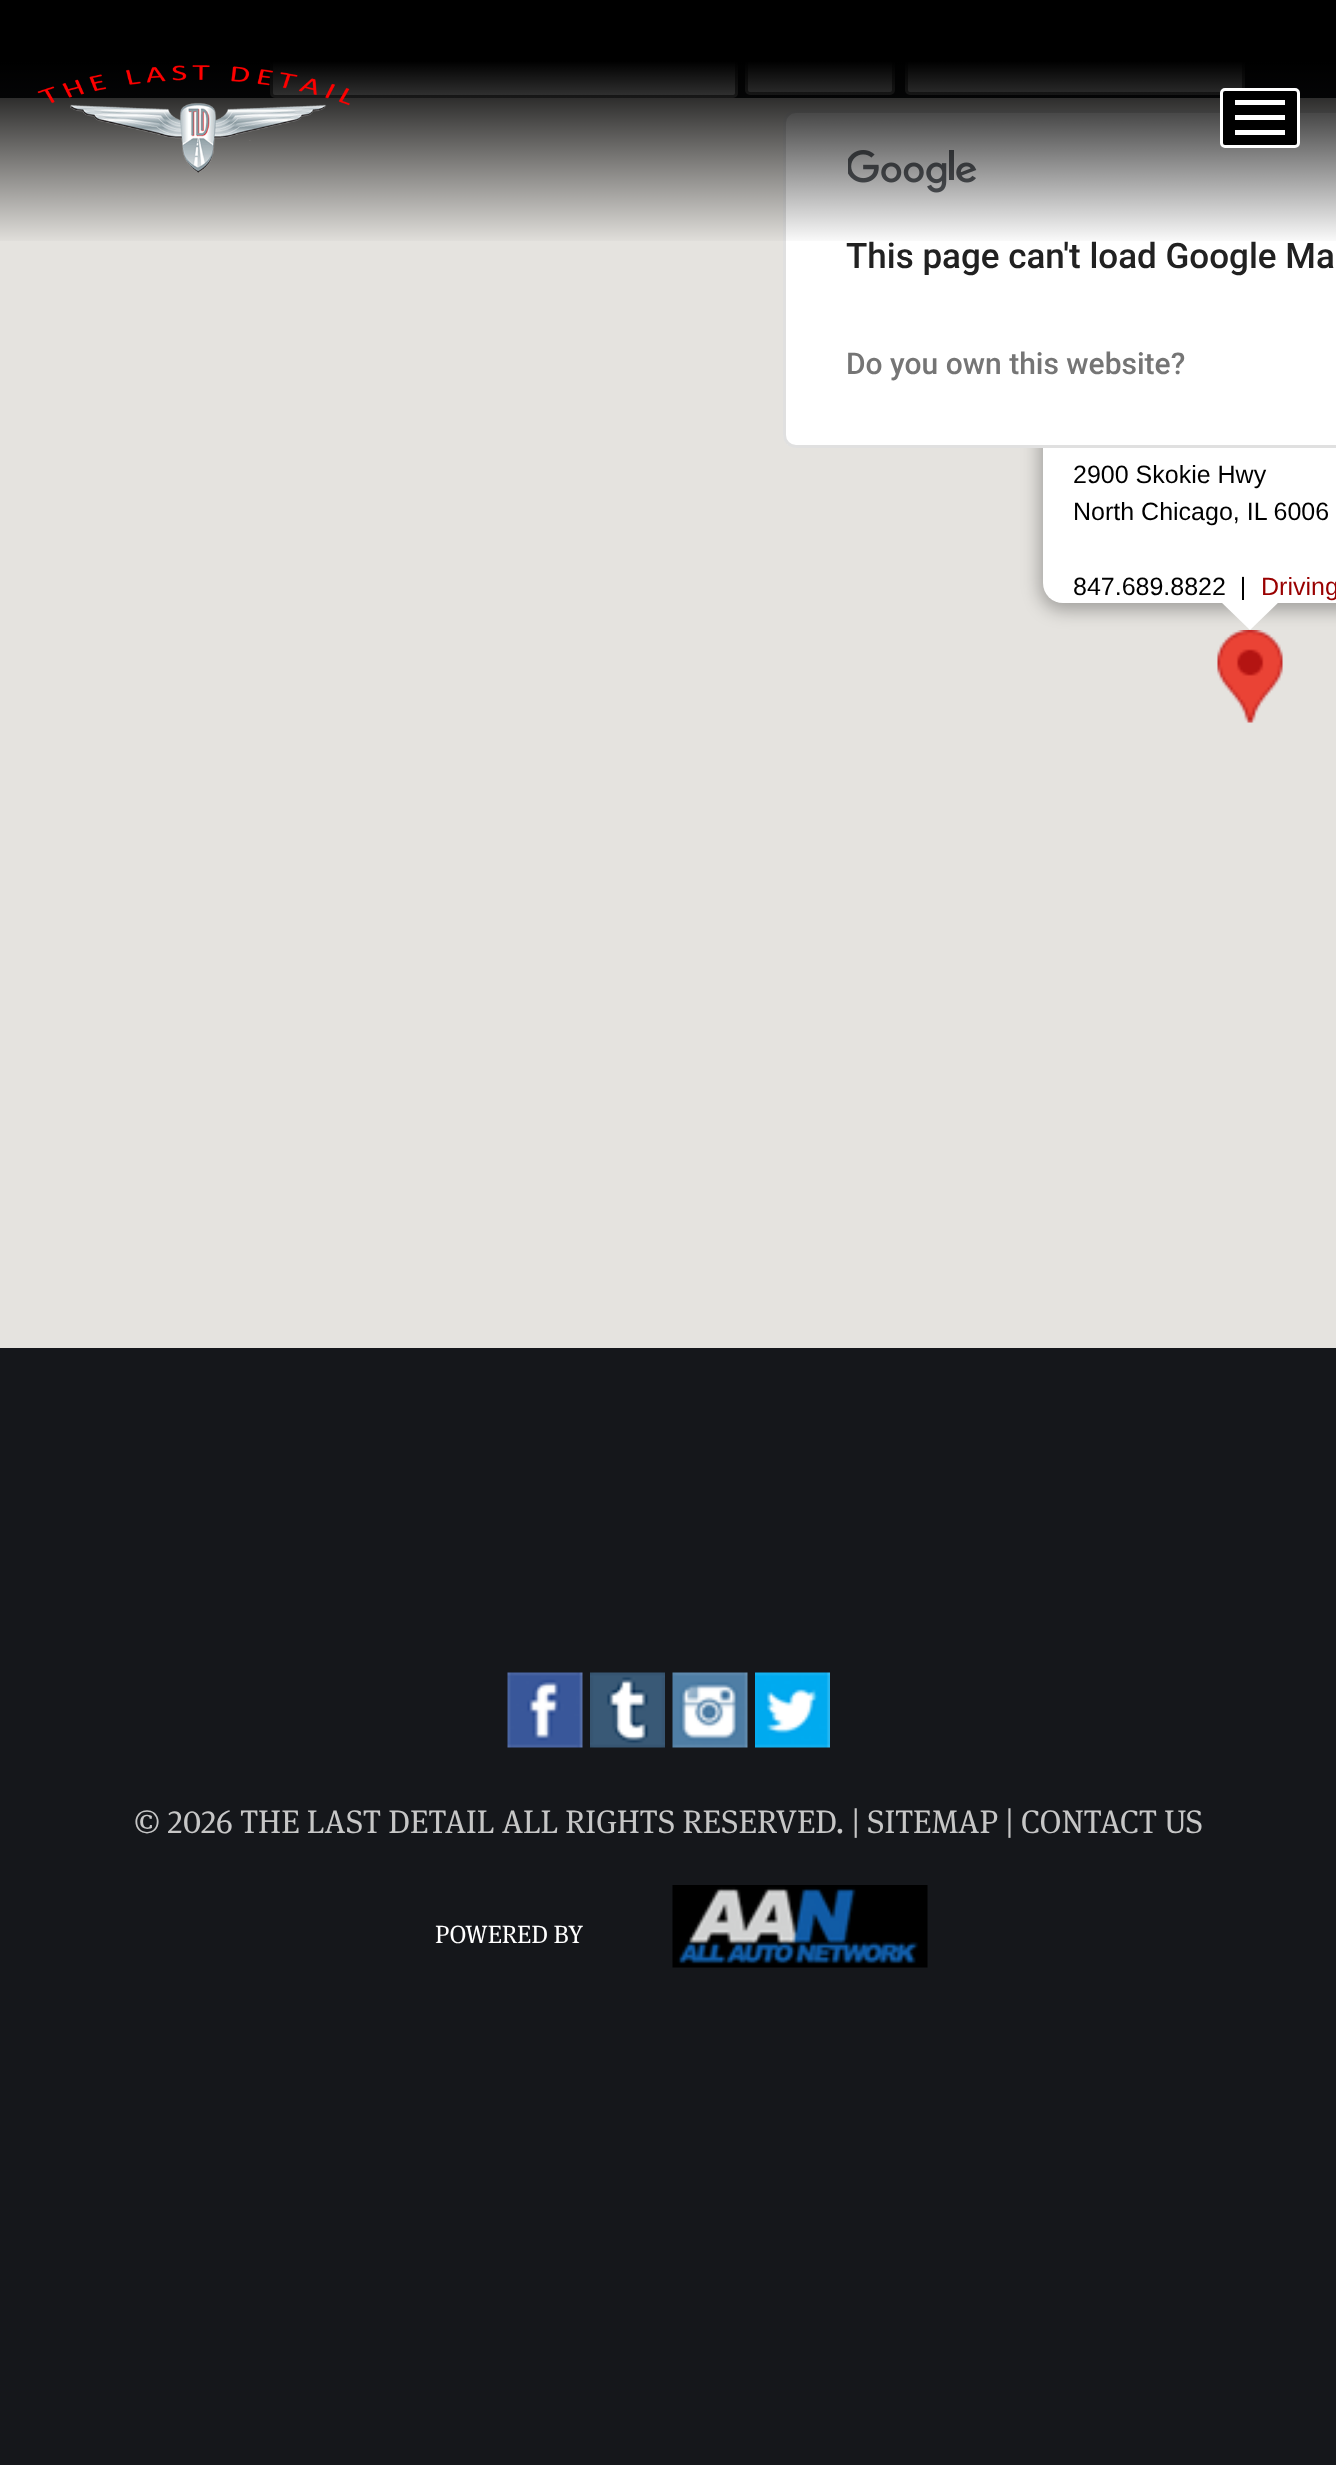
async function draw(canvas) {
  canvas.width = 1336
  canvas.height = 2465
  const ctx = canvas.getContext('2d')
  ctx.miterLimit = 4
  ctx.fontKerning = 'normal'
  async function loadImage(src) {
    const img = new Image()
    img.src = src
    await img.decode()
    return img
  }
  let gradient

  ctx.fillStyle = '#15171b'
  ctx.fillRect(0, 0, 1336, 2465)
  ctx.fillStyle = '#fff'
  ctx.beginPath()
  ctx.roundRect(271.5, 41.5, 465, 55, 3.5)
  ctx.fill()
  ctx.strokeStyle = '#767676'
  ctx.lineWidth = 3
  ctx.stroke()
  ctx.fillStyle = '#efefef'
  ctx.beginPath()
  ctx.roundRect(746.5, 41.5, 147, 52, 3.5)
  ctx.fill()
  ctx.stroke()
  ctx.beginPath()
  ctx.roundRect(906.5, 41.5, 337, 52, 3.5)
  ctx.fill()
  ctx.stroke()
  ctx.fillStyle = '#e5e3df'
  ctx.fillRect(0, 98, 1336, 1250)
  ctx.drawImage(await loadImage('image2.png'), 1217, 630, 66, 93)
  ctx.fillStyle = '#0000004d'
  ctx.filter = 'blur(9px)'
  ctx.beginPath()
  ctx.roundRect(1040, 298, 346, 312, 23)
  ctx.fill()
  ctx.filter = 'none'
  ctx.fillStyle = '#fff'
  ctx.beginPath()
  ctx.roundRect(1043, 295, 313, 308, 20)
  ctx.fill()
  ctx.beginPath()
  ctx.roundRect(783, 110, 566, 338, 13)
  ctx.fill()
  ctx.beginPath()
  ctx.roundRect(784.5, 111.5, 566, 335, 11.5)
  ctx.strokeStyle = '#0000001f'
  ctx.stroke()
  ctx.drawImage(await loadImage('image1.png'), 848, 150, 129, 43)
  gradient = ctx.createLinearGradient(669, 0, 669, 245)
  gradient.addColorStop(0, '#000')
  gradient.addColorStop(0.25, '#000')
  gradient.addColorStop(1, '#00000000')
  ctx.fillStyle = gradient
  ctx.fillRect(0, 0, 1336, 241)
  ctx.drawImage(await loadImage('image0.png'), 37, 65, 313, 108)
  ctx.fillStyle = '#000'
  ctx.beginPath()
  ctx.roundRect(1221.5, 89.5, 77, 57, 3.5)
  ctx.fill()
  ctx.strokeStyle = '#fff'
  ctx.stroke()
  ctx.fillStyle = '#fff'
  ctx.fillRect(1235, 100, 50, 5)
  ctx.fillRect(1235, 115, 50, 5)
  ctx.fillRect(1235, 130, 50, 5)
  ctx.font = '500 35px Roboto'
  ctx.fillStyle = '#212121'
  ctx.fillText('This page can\'t load Google Ma', 846, 268)
  ctx.font = '500 30px Roboto'
  ctx.fillStyle = '#757575'
  ctx.fillText('Do you own this website?', 846, 374)
  ctx.font = '25px Liberation Sans'
  ctx.fillStyle = '#000'
  ctx.fillText('2900 Skokie Hwy', 1073, 483)
  ctx.fillText('North Chicago, IL 6006', 1073, 520)
  ctx.fillText('847.689.8822  |', 1073, 595)
  ctx.fillStyle = '#900'
  ctx.fillText('Driving', 1261, 595)
  ctx.fillStyle = '#fff'
  ctx.beginPath()
  ctx.moveTo(1220, 600)
  ctx.lineTo(1220, 601)
  ctx.lineTo(1250, 630)
  ctx.lineTo(1281, 600)
  ctx.closePath()
  ctx.fill()
  ctx.drawImage(await loadImage('image3.png'), 507, 1672, 76, 76)
  ctx.drawImage(await loadImage('image4.png'), 590, 1672, 75, 76)
  ctx.drawImage(await loadImage('image5.png'), 672, 1672, 76, 76)
  ctx.drawImage(await loadImage('image6.png'), 755, 1672, 75, 76)
  ctx.font = '32.5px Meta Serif'
  ctx.fillStyle = '#c6c6c6'
  ctx.fillText('© 2026 THE LAST DETAIL ALL RIGHTS RESERVED. | SITEMAP | CONTACT US', 134, 1833)
  ctx.font = '25px Meta Serif'
  ctx.fillStyle = '#fff'
  ctx.fillText('POWERED BY', 435, 1943)
  ctx.drawImage(await loadImage('image7.png'), 672, 1885, 256, 83)
}

draw(document.querySelector('canvas'))
